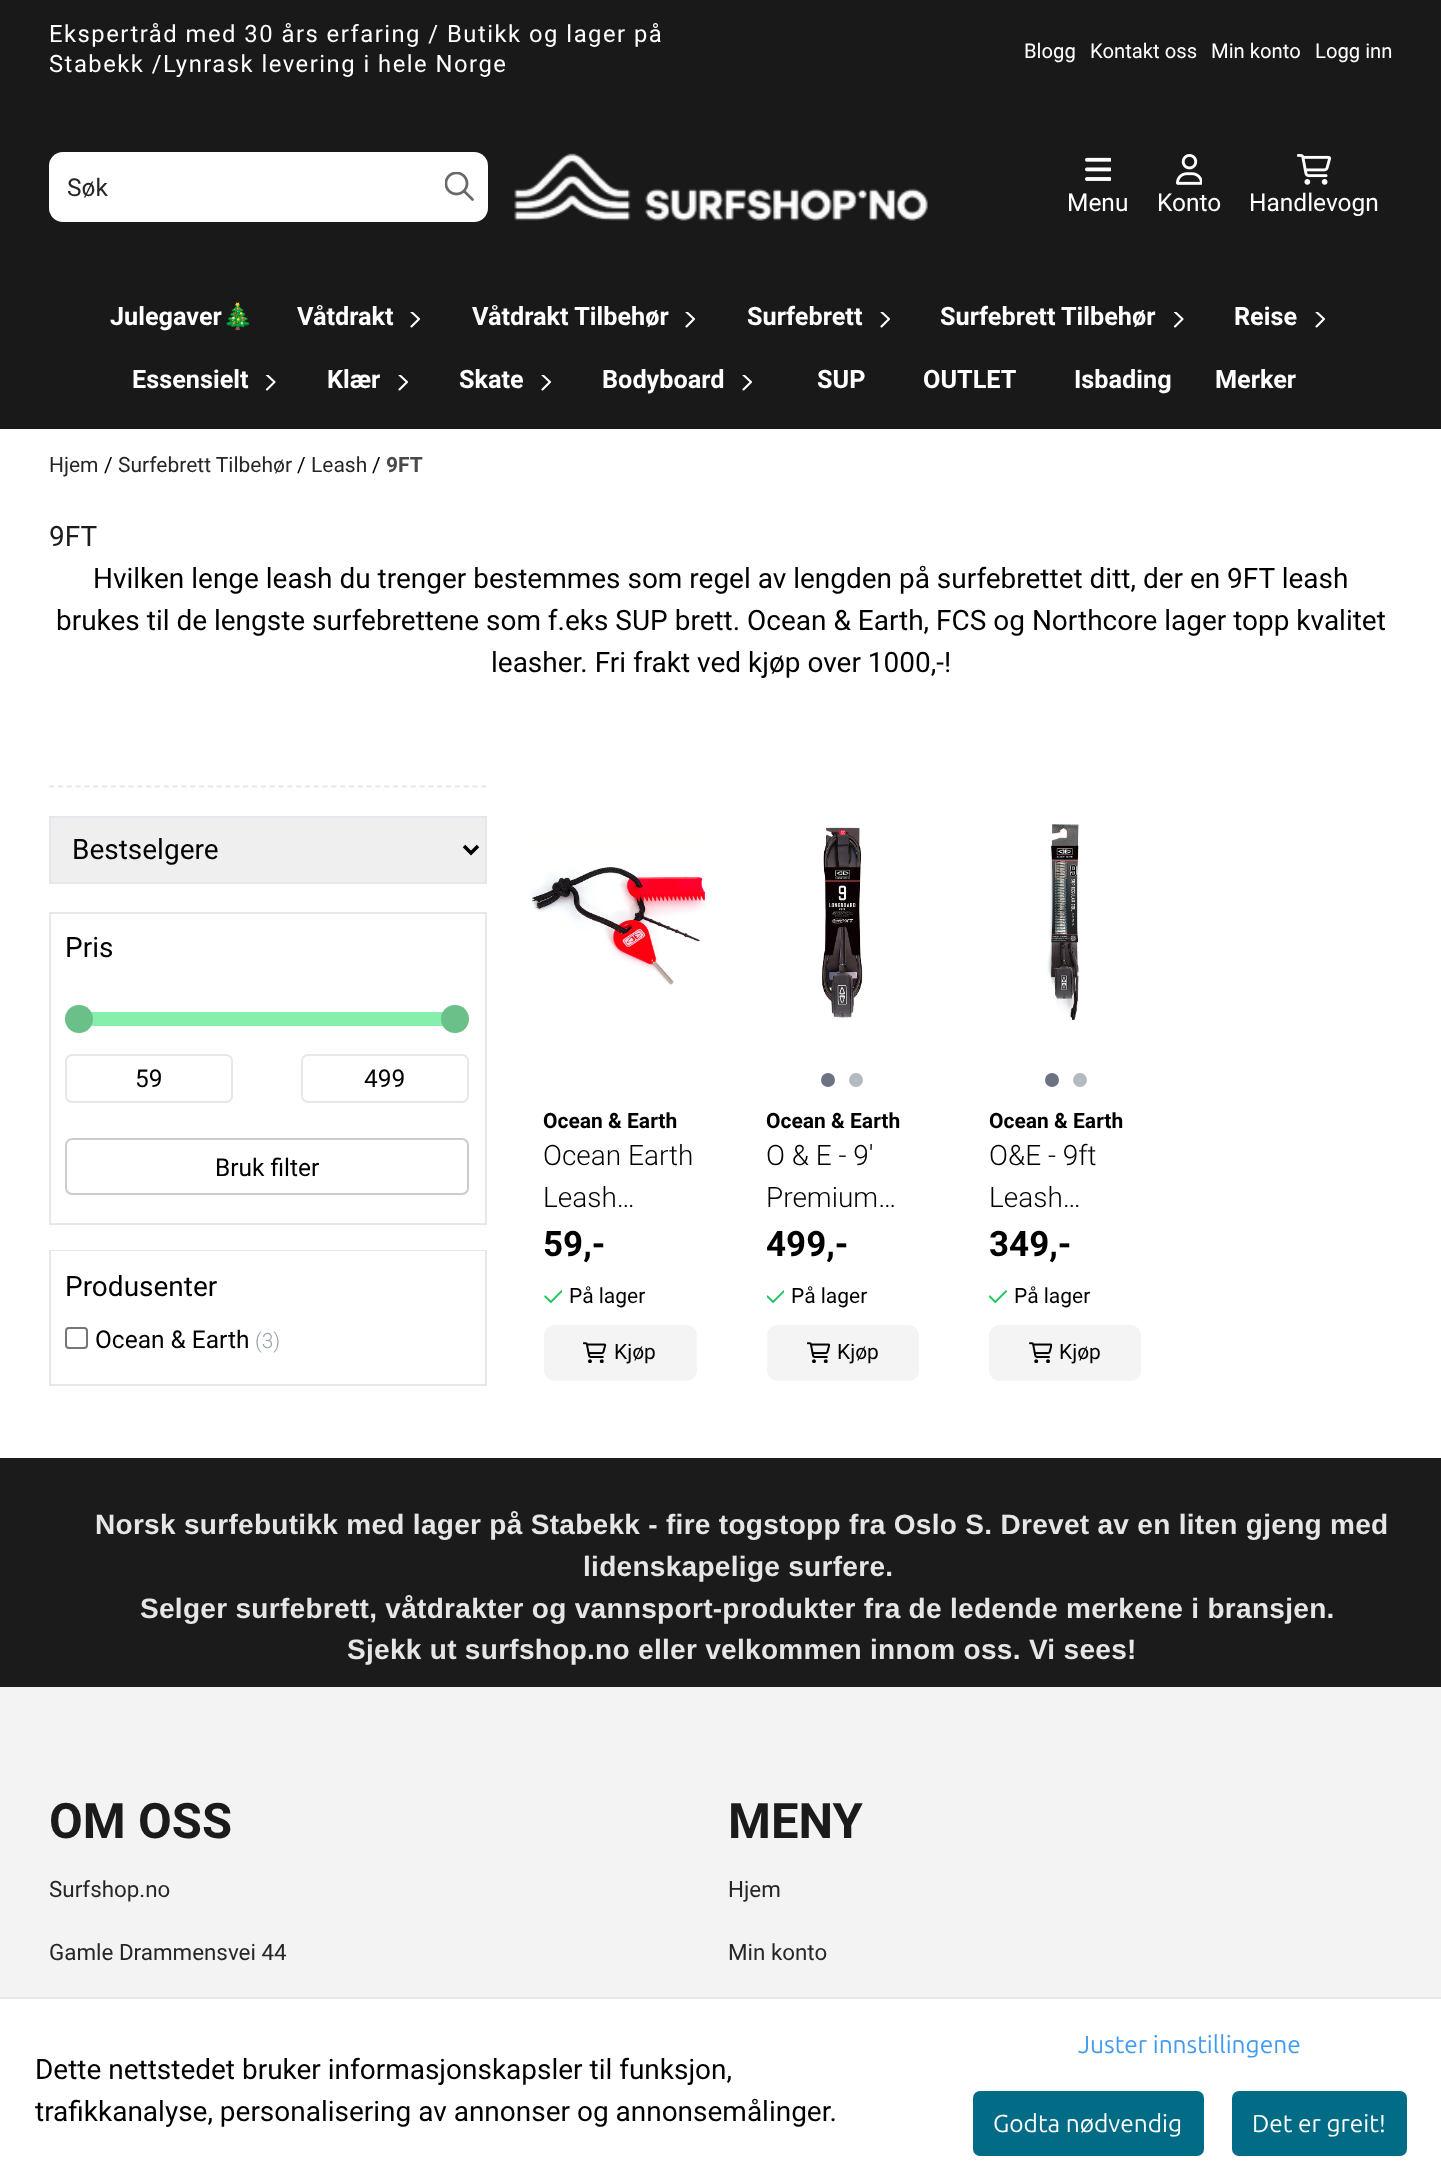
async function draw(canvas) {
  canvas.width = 1441
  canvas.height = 2184
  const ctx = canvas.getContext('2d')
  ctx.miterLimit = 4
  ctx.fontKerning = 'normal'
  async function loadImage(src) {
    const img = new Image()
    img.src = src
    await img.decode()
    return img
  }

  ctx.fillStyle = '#fff'
  ctx.fillRect(0, 0, 1441, 2184)
  ctx.fillStyle = '#191919'
  ctx.fillRect(0, 0, 1441, 429)
  ctx.letterSpacing = '1.5px'
  ctx.font = '23.8px Roboto'
  ctx.fillStyle = '#fff'
  ctx.fillText('Ekspertråd med 30 års erfaring / Butikk og lager på', 49, 42)
  ctx.fillText('Stabekk /Lynrask levering i hele Norge', 49, 72)
  ctx.letterSpacing = '0px'
  ctx.font = '20.25px Roboto'
  ctx.fillText('Blogg', 1024, 58)
  ctx.fillText('Kontakt oss', 1090, 58)
  ctx.fillText('Min konto', 1211, 58)
  ctx.fillText('Logg inn', 1315, 58)
  ctx.beginPath()
  ctx.roundRect(49, 152, 439, 70, 14)
  ctx.fill()
  ctx.font = '24.5px Roboto'
  ctx.fillStyle = '#262626'
  ctx.fillText('Søk', 67, 196)
  ctx.drawImage(await loadImage('image0.png'), 445, 172, 29, 29)
  ctx.drawImage(await loadImage('image1.png'), 514, 153, 414, 68)
  ctx.drawImage(await loadImage('image2.png'), 1085, 157, 26, 24)
  ctx.fillStyle = '#fff'
  ctx.fillText('Menu', 1067, 211)
  ctx.drawImage(await loadImage('image3.png'), 1176, 154, 26, 31)
  ctx.fillText('Konto', 1157, 211)
  ctx.drawImage(await loadImage('image4.png'), 1297, 154, 34, 31)
  ctx.fillText('Handlevogn', 1249, 211)
  ctx.font = 'bold 25.25px Roboto'
  ctx.fillText('Julegaver', 110, 325)
  ctx.font = 'bold 25.25px Noto Color Emoji'
  ctx.fillText('🎄', 222, 325)
  ctx.font = 'bold 25.25px Roboto'
  ctx.fillText('Våtdrakt', 297, 325)
  ctx.save()
  ctx.beginPath()
  ctx.rect(408, 312, 21, 21)
  ctx.clip()
  ctx.beginPath()
  ctx.moveTo(411.5, 312)
  ctx.lineTo(419, 319)
  ctx.lineTo(411.5, 326.5)
  ctx.strokeStyle = '#fff'
  ctx.lineWidth = 2.1
  ctx.lineCap = 'round'
  ctx.lineJoin = 'round'
  ctx.stroke()
  ctx.restore()
  ctx.fillText('Våtdrakt Tilbehør', 472, 325)
  ctx.save()
  ctx.beginPath()
  ctx.rect(683, 312, 21, 21)
  ctx.clip()
  ctx.beginPath()
  ctx.moveTo(686.5, 312)
  ctx.lineTo(694, 319)
  ctx.lineTo(686.5, 326.5)
  ctx.strokeStyle = '#fff'
  ctx.lineWidth = 2.1
  ctx.lineCap = 'round'
  ctx.lineJoin = 'round'
  ctx.stroke()
  ctx.restore()
  ctx.fillText('Surfebrett', 747, 325)
  ctx.save()
  ctx.beginPath()
  ctx.rect(875, 312, 21, 21)
  ctx.clip()
  ctx.beginPath()
  ctx.moveTo(881.5, 312)
  ctx.lineTo(889, 319)
  ctx.lineTo(881.5, 326.5)
  ctx.strokeStyle = '#fff'
  ctx.lineWidth = 2.1
  ctx.lineCap = 'round'
  ctx.lineJoin = 'round'
  ctx.stroke()
  ctx.restore()
  ctx.fillText('Surfebrett Tilbehør', 940, 325)
  ctx.save()
  ctx.beginPath()
  ctx.rect(1169, 312, 21, 21)
  ctx.clip()
  ctx.beginPath()
  ctx.moveTo(1175, 312)
  ctx.lineTo(1182.5, 319)
  ctx.lineTo(1175, 326.5)
  ctx.strokeStyle = '#fff'
  ctx.lineWidth = 2.1
  ctx.lineCap = 'round'
  ctx.lineJoin = 'round'
  ctx.stroke()
  ctx.restore()
  ctx.fillText('Reise', 1234, 325)
  ctx.save()
  ctx.beginPath()
  ctx.rect(1311, 312, 21, 21)
  ctx.clip()
  ctx.beginPath()
  ctx.moveTo(1316.5, 312)
  ctx.lineTo(1324, 319)
  ctx.lineTo(1316.5, 326.5)
  ctx.strokeStyle = '#fff'
  ctx.lineWidth = 2.1
  ctx.lineCap = 'round'
  ctx.lineJoin = 'round'
  ctx.stroke()
  ctx.restore()
  ctx.fillText('Essensielt', 132, 388)
  ctx.save()
  ctx.beginPath()
  ctx.rect(263, 375, 21, 21)
  ctx.clip()
  ctx.beginPath()
  ctx.moveTo(267, 375)
  ctx.lineTo(274.5, 382)
  ctx.lineTo(267, 389.5)
  ctx.strokeStyle = '#fff'
  ctx.lineWidth = 2.1
  ctx.lineCap = 'round'
  ctx.lineJoin = 'round'
  ctx.stroke()
  ctx.restore()
  ctx.fillText('Klær', 327, 388)
  ctx.save()
  ctx.beginPath()
  ctx.rect(394, 375, 21, 21)
  ctx.clip()
  ctx.beginPath()
  ctx.moveTo(399.5, 375)
  ctx.lineTo(407, 382)
  ctx.lineTo(399.5, 389.5)
  ctx.strokeStyle = '#fff'
  ctx.lineWidth = 2.1
  ctx.lineCap = 'round'
  ctx.lineJoin = 'round'
  ctx.stroke()
  ctx.restore()
  ctx.fillText('Skate', 459, 388)
  ctx.save()
  ctx.beginPath()
  ctx.rect(537, 375, 21, 21)
  ctx.clip()
  ctx.beginPath()
  ctx.moveTo(542.5, 375)
  ctx.lineTo(550, 382)
  ctx.lineTo(542.5, 389.5)
  ctx.strokeStyle = '#fff'
  ctx.lineWidth = 2.1
  ctx.lineCap = 'round'
  ctx.lineJoin = 'round'
  ctx.stroke()
  ctx.restore()
  ctx.fillText('Bodyboard', 602, 388)
  ctx.save()
  ctx.beginPath()
  ctx.rect(739, 375, 21, 21)
  ctx.clip()
  ctx.beginPath()
  ctx.moveTo(743.5, 375)
  ctx.lineTo(751, 382)
  ctx.lineTo(743.5, 389.5)
  ctx.strokeStyle = '#fff'
  ctx.lineWidth = 2.1
  ctx.lineCap = 'round'
  ctx.lineJoin = 'round'
  ctx.stroke()
  ctx.restore()
  ctx.fillText('SUP', 817, 388)
  ctx.fillText('OUTLET', 923, 388)
  ctx.fillText('Isbading', 1074, 388)
  ctx.fillText('Merker', 1215, 388)
  ctx.font = '21px Roboto'
  ctx.fillStyle = '#262626'
  ctx.fillText('Hjem', 49, 472)
  ctx.fillStyle = '#000'
  ctx.fillText('/', 104, 472)
  ctx.fillStyle = '#262626'
  ctx.fillText('Surfebrett Tilbehør', 118, 472)
  ctx.fillStyle = '#000'
  ctx.fillText('/', 297, 472)
  ctx.fillStyle = '#262626'
  ctx.fillText('Leash', 311, 472)
  ctx.fillStyle = '#000'
  ctx.fillText('/', 372, 472)
  ctx.font = 'bold 21px Roboto'
  ctx.fillStyle = '#4a4a4a'
  ctx.fillText('9FT', 386, 472)
  ctx.font = '28px Roboto'
  ctx.fillStyle = '#1b1b1b'
  ctx.fillText('9FT', 49, 546)
  ctx.fillStyle = '#000'
  ctx.fillText('Hvilken lenge leash du trenger bestemmes som regel av lengden på surfebrettet ditt, der en 9FT leash', 93, 588)
  ctx.fillText('brukes til de lengste surfebrettene som f.eks SUP brett. Ocean & Earth, FCS og Northcore lager topp kvalitet', 56, 630)
  ctx.fillText('leasher. Fri frakt ved kjøp over 1000,-!', 491, 672)
  ctx.beginPath()
  ctx.moveTo(49, 786.5)
  ctx.lineTo(486.5, 786.5)
  ctx.strokeStyle = '#e5e7eb'
  ctx.lineWidth = 1.8
  ctx.setLineDash([5.25, 3.57])
  ctx.stroke()
  ctx.fillStyle = '#efefef'
  ctx.beginPath()
  ctx.rect(50, 817, 436, 66)
  ctx.fill()
  ctx.lineWidth = 2
  ctx.setLineDash([])
  ctx.stroke()
  ctx.beginPath()
  ctx.moveTo(464, 846)
  ctx.lineTo(471, 853)
  ctx.lineTo(478, 846)
  ctx.strokeStyle = '#000'
  ctx.lineWidth = 3.5
  ctx.stroke()
  ctx.fillStyle = '#000'
  ctx.fillText('Bestselgere', 72, 859)
  ctx.strokeStyle = '#e5e7eb'
  ctx.lineWidth = 2
  ctx.strokeRect(50, 913, 436, 311)
  ctx.fillText('Pris', 65, 957)
  ctx.fillStyle = '#86efac'
  ctx.fillRect(91, 1012, 352, 14)
  ctx.beginPath()
  ctx.arc(79, 1019, 14, 0, 2 * Math.PI)
  ctx.fill()
  ctx.fillStyle = '#00000033'
  ctx.beginPath()
  ctx.arc(79, 1019, 14, 0, 2 * Math.PI)
  ctx.fill()
  ctx.fillStyle = '#86efac'
  ctx.beginPath()
  ctx.arc(455, 1019, 14, 0, 2 * Math.PI)
  ctx.fill()
  ctx.fillStyle = '#00000033'
  ctx.beginPath()
  ctx.arc(455, 1019, 14, 0, 2 * Math.PI)
  ctx.fill()
  ctx.beginPath()
  ctx.roundRect(66, 1055, 166, 47, 6)
  ctx.stroke()
  ctx.font = '24.5px Roboto'
  ctx.fillStyle = '#000'
  ctx.fillText('59', 135, 1087)
  ctx.beginPath()
  ctx.roundRect(302, 1055, 166, 47, 6)
  ctx.stroke()
  ctx.fillText('499', 364, 1087)
  ctx.beginPath()
  ctx.roundRect(66, 1139, 402, 55, 6)
  ctx.strokeStyle = '#ccc'
  ctx.stroke()
  ctx.fillText('Bruk filter', 215, 1176)
  ctx.strokeStyle = '#e5e7eb'
  ctx.strokeRect(50, 1251, 436, 134)
  ctx.fillStyle = '#fff'
  ctx.fillRect(51, 1251, 434, 1)
  ctx.font = '28px Roboto'
  ctx.fillStyle = '#000'
  ctx.fillText('Produsenter', 65, 1296)
  ctx.beginPath()
  ctx.roundRect(66, 1328, 21, 20, 3)
  ctx.strokeStyle = '#767676'
  ctx.stroke()
  ctx.font = '24.5px Roboto'
  ctx.fillText('Ocean & Earth', 95, 1348)
  ctx.font = '300 21px Roboto'
  ctx.fillStyle = '#9ca3af'
  ctx.fillText('(3)', 255, 1348)
  ctx.drawImage(await loadImage('image5.png'), 523, 824, 184, 161)
  ctx.font = 'bold 21px Roboto'
  ctx.fillStyle = '#000'
  ctx.fillText('Ocean & Earth', 543, 1128)
  ctx.font = '300 28px Roboto'
  ctx.fillText('Ocean Earth', 543, 1165)
  ctx.fillText('Leash…', 543, 1207)
  ctx.font = 'bold 35px Roboto'
  ctx.fillText('59,-', 543, 1256)
  ctx.drawImage(await loadImage('image6.png'), 544, 1290, 18, 13)
  ctx.font = '21px Roboto'
  ctx.fillText('På lager', 569, 1303)
  ctx.fillStyle = '#f4f4f5'
  ctx.beginPath()
  ctx.roundRect(544, 1325, 153, 56, 11)
  ctx.fill()
  ctx.drawImage(await loadImage('image7.png'), 583, 1342, 24, 21)
  ctx.fillStyle = '#000'
  ctx.fillText('Kjøp', 614, 1359)
  ctx.drawImage(await loadImage('image8.png'), 822, 827, 41, 192)
  ctx.fillStyle = '#6b7280'
  ctx.beginPath()
  ctx.arc(828, 1080, 7, 0, 2 * Math.PI)
  ctx.fill()
  ctx.fillStyle = '#b5b9c0'
  ctx.beginPath()
  ctx.arc(856, 1080, 7, 0, 2 * Math.PI)
  ctx.fill()
  ctx.font = 'bold 21px Roboto'
  ctx.fillStyle = '#000'
  ctx.fillText('Ocean & Earth', 766, 1128)
  ctx.font = '300 28px Roboto'
  ctx.fillText('O & E - 9\'', 766, 1165)
  ctx.fillText('Premium…', 766, 1207)
  ctx.font = 'bold 35px Roboto'
  ctx.fillText('499,-', 766, 1256)
  ctx.drawImage(await loadImage('image9.png'), 767, 1290, 17, 13)
  ctx.font = '21px Roboto'
  ctx.fillText('På lager', 791, 1303)
  ctx.fillStyle = '#f4f4f5'
  ctx.beginPath()
  ctx.roundRect(767, 1325, 152, 56, 11)
  ctx.fill()
  ctx.drawImage(await loadImage('image10.png'), 807, 1342, 23, 21)
  ctx.fillStyle = '#000'
  ctx.fillText('Kjøp', 837, 1359)
  ctx.drawImage(await loadImage('image11.png'), 1047, 824, 32, 197)
  ctx.fillStyle = '#6b7280'
  ctx.beginPath()
  ctx.arc(1052, 1080, 7, 0, 2 * Math.PI)
  ctx.fill()
  ctx.fillStyle = '#b5b9c0'
  ctx.beginPath()
  ctx.arc(1080, 1080, 7, 0, 2 * Math.PI)
  ctx.fill()
  ctx.font = 'bold 21px Roboto'
  ctx.fillStyle = '#000'
  ctx.fillText('Ocean & Earth', 989, 1128)
  ctx.font = '300 28px Roboto'
  ctx.fillText('O&E - 9ft', 989, 1165)
  ctx.fillText('Leash…', 989, 1207)
  ctx.font = 'bold 35px Roboto'
  ctx.fillText('349,-', 989, 1256)
  ctx.drawImage(await loadImage('image12.png'), 989, 1290, 19, 13)
  ctx.font = '21px Roboto'
  ctx.fillText('På lager', 1014, 1303)
  ctx.fillStyle = '#f4f4f5'
  ctx.beginPath()
  ctx.roundRect(989, 1325, 152, 56, 11)
  ctx.fill()
  ctx.drawImage(await loadImage('image13.png'), 1029, 1342, 23, 21)
  ctx.fillStyle = '#000'
  ctx.fillText('Kjøp', 1059, 1359)
  ctx.fillStyle = '#1b1b1b'
  ctx.fillRect(0, 1458, 1441, 229)
  ctx.letterSpacing = '0.3px'
  ctx.font = 'bold 28px Liberation Sans'
  ctx.fillStyle = '#e6e6e6'
  ctx.fillText('Norsk surfebutikk med lager på Stabekk - fire togstopp fra Oslo S. Drevet av en liten gjeng med', 95, 1534)
  ctx.fillText('lidenskapelige surfere.', 583, 1576)
  ctx.fillText('Selger surfebrett, våtdrakter og vannsport-produkter fra de ledende merkene i bransjen.', 140, 1618)
  ctx.fillText('Sjekk ut surfshop.no eller velkommen innom oss. Vi sees!', 347, 1659)
  ctx.fillStyle = '#f3f3f3'
  ctx.fillRect(0, 1687, 1441, 310)
  ctx.letterSpacing = '0px'
  ctx.font = 'bold 49px Roboto'
  ctx.fillStyle = '#1b1b1b'
  ctx.fillText('OM OSS', 49, 1838)
  ctx.font = '22.4px Roboto'
  ctx.fillStyle = '#262626'
  ctx.fillText('Surfshop.no', 49, 1897)
  ctx.fillText('Gamle Drammensvei 44', 49, 1960)
  ctx.font = 'bold 49px Roboto'
  ctx.fillStyle = '#1b1b1b'
  ctx.fillText('MENY', 728, 1838)
  ctx.font = '22.4px Roboto'
  ctx.fillStyle = '#262626'
  ctx.fillText('Hjem', 728, 1897)
  ctx.fillText('Min konto', 728, 1960)
  ctx.fillStyle = '#e5e7eb'
  ctx.fillRect(0, 1997, 1441, 2)
  ctx.font = '28px Roboto'
  ctx.fillStyle = '#000'
  ctx.fillText('Dette nettstedet bruker informasjonskapsler til funksjon,', 35, 2079)
  ctx.fillText('trafikkanalyse, personalisering av annonser og annonsemålinger.', 35, 2121)
  ctx.font = '24.5px Ubuntu'
  ctx.fillStyle = '#409aef'
  ctx.fillText('Juster innstillingene', 1078, 2053)
  ctx.fillStyle = '#026b85'
  ctx.beginPath()
  ctx.roundRect(973, 2091, 231, 65, 7)
  ctx.fill()
  ctx.fillStyle = '#fff'
  ctx.fillText('Godta nødvendig', 993, 2132)
  ctx.fillStyle = '#026b85'
  ctx.beginPath()
  ctx.roundRect(1232, 2091, 175, 65, 7)
  ctx.fill()
  ctx.fillStyle = '#fff'
  ctx.fillText('Det er greit!', 1252, 2132)
}

draw(document.querySelector('canvas'))
